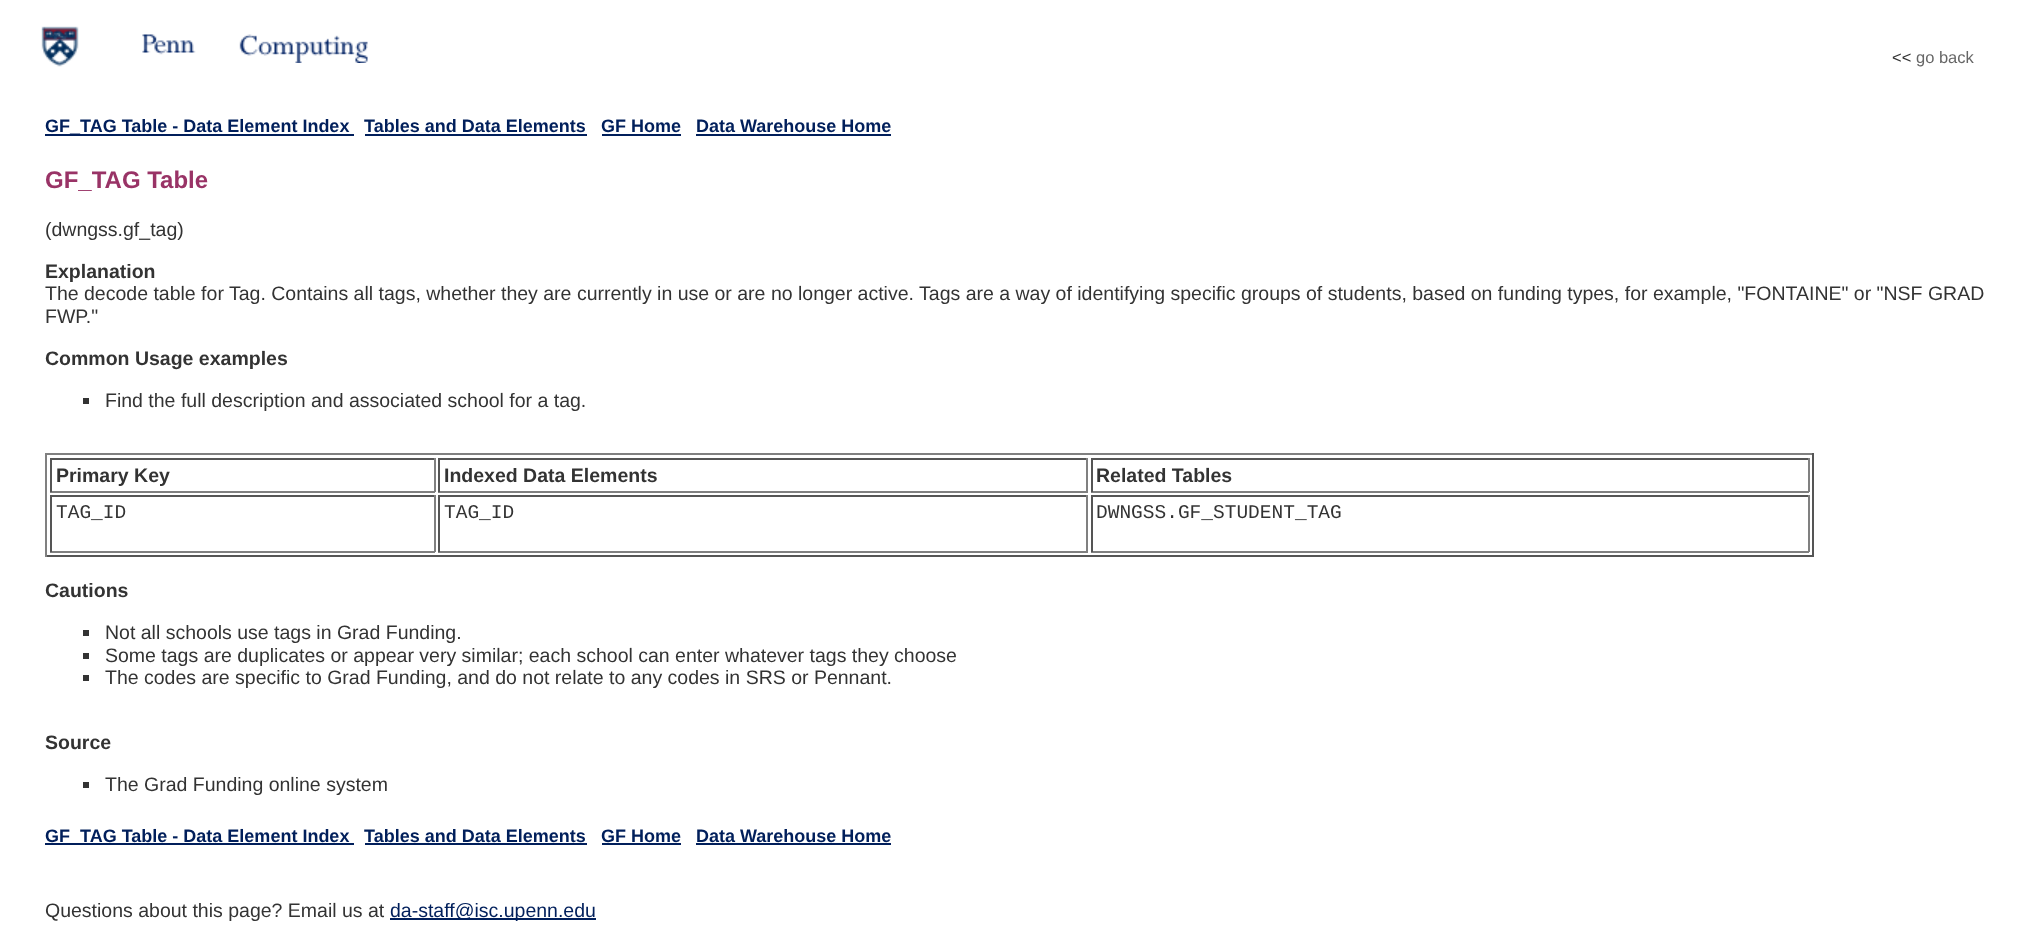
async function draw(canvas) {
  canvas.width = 2034
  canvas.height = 937
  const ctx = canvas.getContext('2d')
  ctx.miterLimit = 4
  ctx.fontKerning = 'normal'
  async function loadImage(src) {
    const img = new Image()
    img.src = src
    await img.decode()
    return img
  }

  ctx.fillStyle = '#fff'
  ctx.fillRect(0, 0, 2034, 937)
  ctx.drawImage(await loadImage('image0.png'), 41, 26, 38, 41)
  ctx.drawImage(await loadImage('image1.png'), 142, 34, 54, 21)
  ctx.drawImage(await loadImage('image2.png'), 239, 34, 129, 29)
  ctx.font = '16.5px Liberation Sans'
  ctx.fillStyle = '#333'
  ctx.fillText('<<', 1892, 63)
  ctx.fillStyle = '#666'
  ctx.fillText('go back', 1916, 63)
  ctx.fillStyle = '#011f5b'
  ctx.fillRect(45, 134, 309, 2)
  ctx.font = 'bold 18px Liberation Sans'
  ctx.fillText('GF_TAG Table - Data Element Index', 45, 132)
  ctx.fillText('Tables and Data Elements', 364, 132)
  ctx.fillRect(365, 134, 222, 2)
  ctx.fillText('GF Home', 601, 132)
  ctx.fillRect(602, 134, 79, 2)
  ctx.fillText('Data Warehouse Home', 696, 132)
  ctx.fillRect(696, 134, 195, 2)
  ctx.font = 'bold 24px Liberation Sans'
  ctx.fillStyle = '#936'
  ctx.fillText('GF_TAG Table', 45, 188)
  ctx.font = '19.5px Liberation Sans'
  ctx.fillStyle = '#333'
  ctx.fillText('(dwngss.gf_tag)', 45, 236)
  ctx.font = 'bold 19.5px Liberation Sans'
  ctx.fillText('Explanation', 45, 278)
  ctx.font = '19.5px Liberation Sans'
  ctx.fillText('The decode table for Tag. Contains all tags, whether they are currently in use or are no longer active. Tags are a way of identifying specific groups of students, based on funding types, for example, "FONTAINE" or "NSF GRAD', 45, 300)
  ctx.fillText('FWP."', 45, 323)
  ctx.font = 'bold 19.5px Liberation Sans'
  ctx.fillText('Common Usage examples', 45, 365)
  ctx.fillRect(83, 398, 6, 6)
  ctx.font = '19.5px Liberation Sans'
  ctx.fillText('Find the full description and associated school for a tag.', 105, 407)
  ctx.fillStyle = '#808080'
  ctx.fillRect(45, 453, 1769, 2)
  ctx.fillStyle = '#555'
  ctx.fillRect(1812, 453, 2, 104)
  ctx.fillRect(45, 555, 1769, 2)
  ctx.fillStyle = '#808080'
  ctx.fillRect(45, 453, 2, 104)
  ctx.fillStyle = '#555'
  ctx.fillRect(50, 458, 385, 2)
  ctx.fillStyle = '#808080'
  ctx.fillRect(434, 458, 2, 34)
  ctx.fillRect(50, 491, 385, 2)
  ctx.fillStyle = '#555'
  ctx.fillRect(50, 458, 2, 34)
  ctx.font = 'bold 19.5px Liberation Sans'
  ctx.fillStyle = '#333'
  ctx.fillText('Primary Key', 56, 482)
  ctx.fillStyle = '#555'
  ctx.fillRect(438, 458, 650, 2)
  ctx.fillStyle = '#808080'
  ctx.fillRect(1086, 458, 2, 34)
  ctx.fillRect(438, 491, 650, 2)
  ctx.fillStyle = '#555'
  ctx.fillRect(438, 458, 2, 34)
  ctx.fillStyle = '#333'
  ctx.fillText('Indexed Data Elements', 444, 482)
  ctx.fillStyle = '#555'
  ctx.fillRect(1091, 458, 718, 2)
  ctx.fillStyle = '#808080'
  ctx.fillRect(1808, 458, 2, 34)
  ctx.fillRect(1091, 491, 718, 2)
  ctx.fillStyle = '#555'
  ctx.fillRect(1091, 458, 2, 34)
  ctx.fillStyle = '#333'
  ctx.fillText('Related Tables', 1096, 482)
  ctx.fillStyle = '#555'
  ctx.fillRect(50, 495, 385, 2)
  ctx.fillStyle = '#808080'
  ctx.fillRect(434, 495, 2, 57)
  ctx.fillRect(50, 551, 385, 2)
  ctx.fillStyle = '#555'
  ctx.fillRect(50, 495, 2, 57)
  ctx.font = '19.5px Liberation Mono'
  ctx.fillStyle = '#333'
  ctx.fillText('TAG_ID', 56, 518)
  ctx.fillStyle = '#555'
  ctx.fillRect(438, 495, 650, 2)
  ctx.fillStyle = '#808080'
  ctx.fillRect(1086, 495, 2, 57)
  ctx.fillRect(438, 551, 650, 2)
  ctx.fillStyle = '#555'
  ctx.fillRect(438, 495, 2, 57)
  ctx.fillStyle = '#333'
  ctx.fillText('TAG_ID', 444, 518)
  ctx.fillStyle = '#555'
  ctx.fillRect(1091, 495, 718, 2)
  ctx.fillStyle = '#808080'
  ctx.fillRect(1808, 495, 2, 57)
  ctx.fillRect(1091, 551, 718, 2)
  ctx.fillStyle = '#555'
  ctx.fillRect(1091, 495, 2, 57)
  ctx.fillStyle = '#333'
  ctx.fillText('DWNGSS.GF_STUDENT_TAG', 1096, 518)
  ctx.font = 'bold 19.5px Liberation Sans'
  ctx.fillText('Cautions', 45, 597)
  ctx.fillRect(83, 630, 6, 6)
  ctx.font = '19.5px Liberation Sans'
  ctx.fillText('Not all schools use tags in Grad Funding.', 105, 639)
  ctx.fillRect(83, 653, 6, 6)
  ctx.fillText('Some tags are duplicates or appear very similar; each school can enter whatever tags they choose', 105, 662)
  ctx.fillRect(83, 675, 6, 6)
  ctx.fillText('The codes are specific to Grad Funding, and do not relate to any codes in SRS or Pennant.', 105, 684)
  ctx.font = 'bold 19.5px Liberation Sans'
  ctx.fillText('Source', 45, 749)
  ctx.fillRect(83, 782, 6, 6)
  ctx.font = '19.5px Liberation Sans'
  ctx.fillText('The Grad Funding online system', 105, 791)
  ctx.fillStyle = '#011f5b'
  ctx.fillRect(45, 843, 309, 2)
  ctx.font = 'bold 18px Liberation Sans'
  ctx.fillText('GF_TAG Table - Data Element Index', 45, 842)
  ctx.fillText('Tables and Data Elements', 364, 842)
  ctx.fillRect(365, 843, 222, 2)
  ctx.fillText('GF Home', 601, 842)
  ctx.fillRect(602, 843, 79, 2)
  ctx.fillText('Data Warehouse Home', 696, 842)
  ctx.fillRect(696, 843, 195, 2)
  ctx.font = '19.5px Liberation Sans'
  ctx.fillStyle = '#333'
  ctx.fillText('Questions about this page? Email us at', 45, 917)
  ctx.fillStyle = '#011f5b'
  ctx.fillRect(390, 918, 206, 2)
  ctx.fillText('da-staff@isc.upenn.edu', 390, 917)
}

draw(document.querySelector('canvas'))
